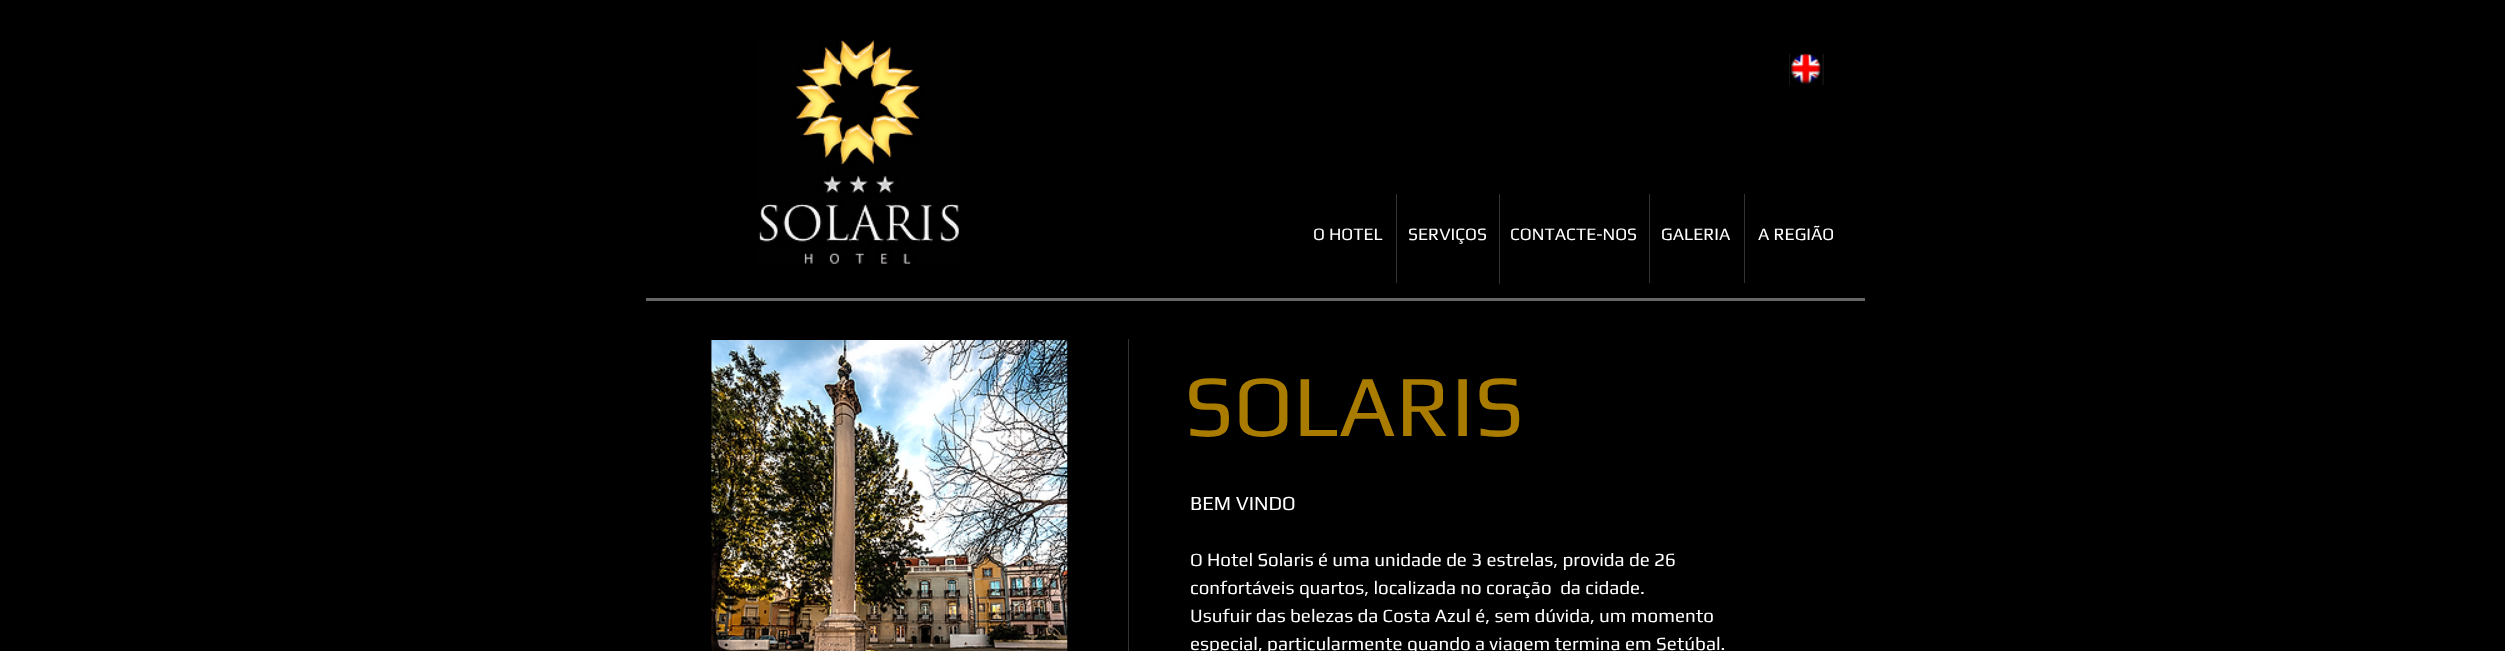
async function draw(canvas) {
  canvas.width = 2505
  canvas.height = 651
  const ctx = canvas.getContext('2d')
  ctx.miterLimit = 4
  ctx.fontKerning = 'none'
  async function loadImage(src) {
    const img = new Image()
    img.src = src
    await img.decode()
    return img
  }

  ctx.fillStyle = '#000'
  ctx.fillRect(0, 0, 2505, 651)
  ctx.drawImage(await loadImage('image0.png'), 758, 40, 201, 224)
  ctx.drawImage(await loadImage('image1.png'), 1789, 53, 35, 32)
  ctx.font = '17.5px Play'
  ctx.fillStyle = '#fff'
  ctx.fillText('O HOTEL', 1313, 240)
  ctx.fillStyle = '#333'
  ctx.fillRect(1396, 194, 1, 89)
  ctx.fillStyle = '#fff'
  ctx.fillText('SERVIÇOS', 1408, 240)
  ctx.fillStyle = '#333'
  ctx.fillRect(1499, 194, 1, 90)
  ctx.fillStyle = '#fff'
  ctx.fillText('CONTACTE-NOS', 1510, 240)
  ctx.fillStyle = '#333'
  ctx.fillRect(1649, 194, 1, 89)
  ctx.fillStyle = '#fff'
  ctx.fillText('GALERIA', 1661, 240)
  ctx.fillStyle = '#333'
  ctx.fillRect(1744, 194, 1, 89)
  ctx.fillStyle = '#fff'
  ctx.fillText('A REGIÃO', 1758, 240)
  ctx.drawImage(await loadImage('image2.png'), 711, 340, 357, 311)
  ctx.fillStyle = '#333'
  ctx.fillRect(1128, 339, 1, 312)
  ctx.font = '87.5px Play'
  ctx.fillStyle = '#a97c00'
  ctx.fillText('SOLARIS', 1184, 436)
  ctx.font = '20px Play'
  ctx.fillStyle = '#fff'
  ctx.fillText('BEM VINDO', 1190, 510)
  ctx.font = '18.75px Play'
  ctx.fillText('O Hotel Solaris é uma unidade de 3 estrelas, provida de 26', 1190, 566)
  ctx.fillText('confortáveis quartos, localizada no coração  da cidade.', 1190, 594)
  ctx.fillText('Usufuir das belezas da Costa Azul é, sem dúvida, um momento', 1190, 622)
  ctx.fillText('especial, particularmente quando a viagem termina em Setúbal.', 1190, 650)
  ctx.fillStyle = '#666'
  ctx.fillRect(646, 298, 1219, 3)
}

draw(document.querySelector('canvas'))
